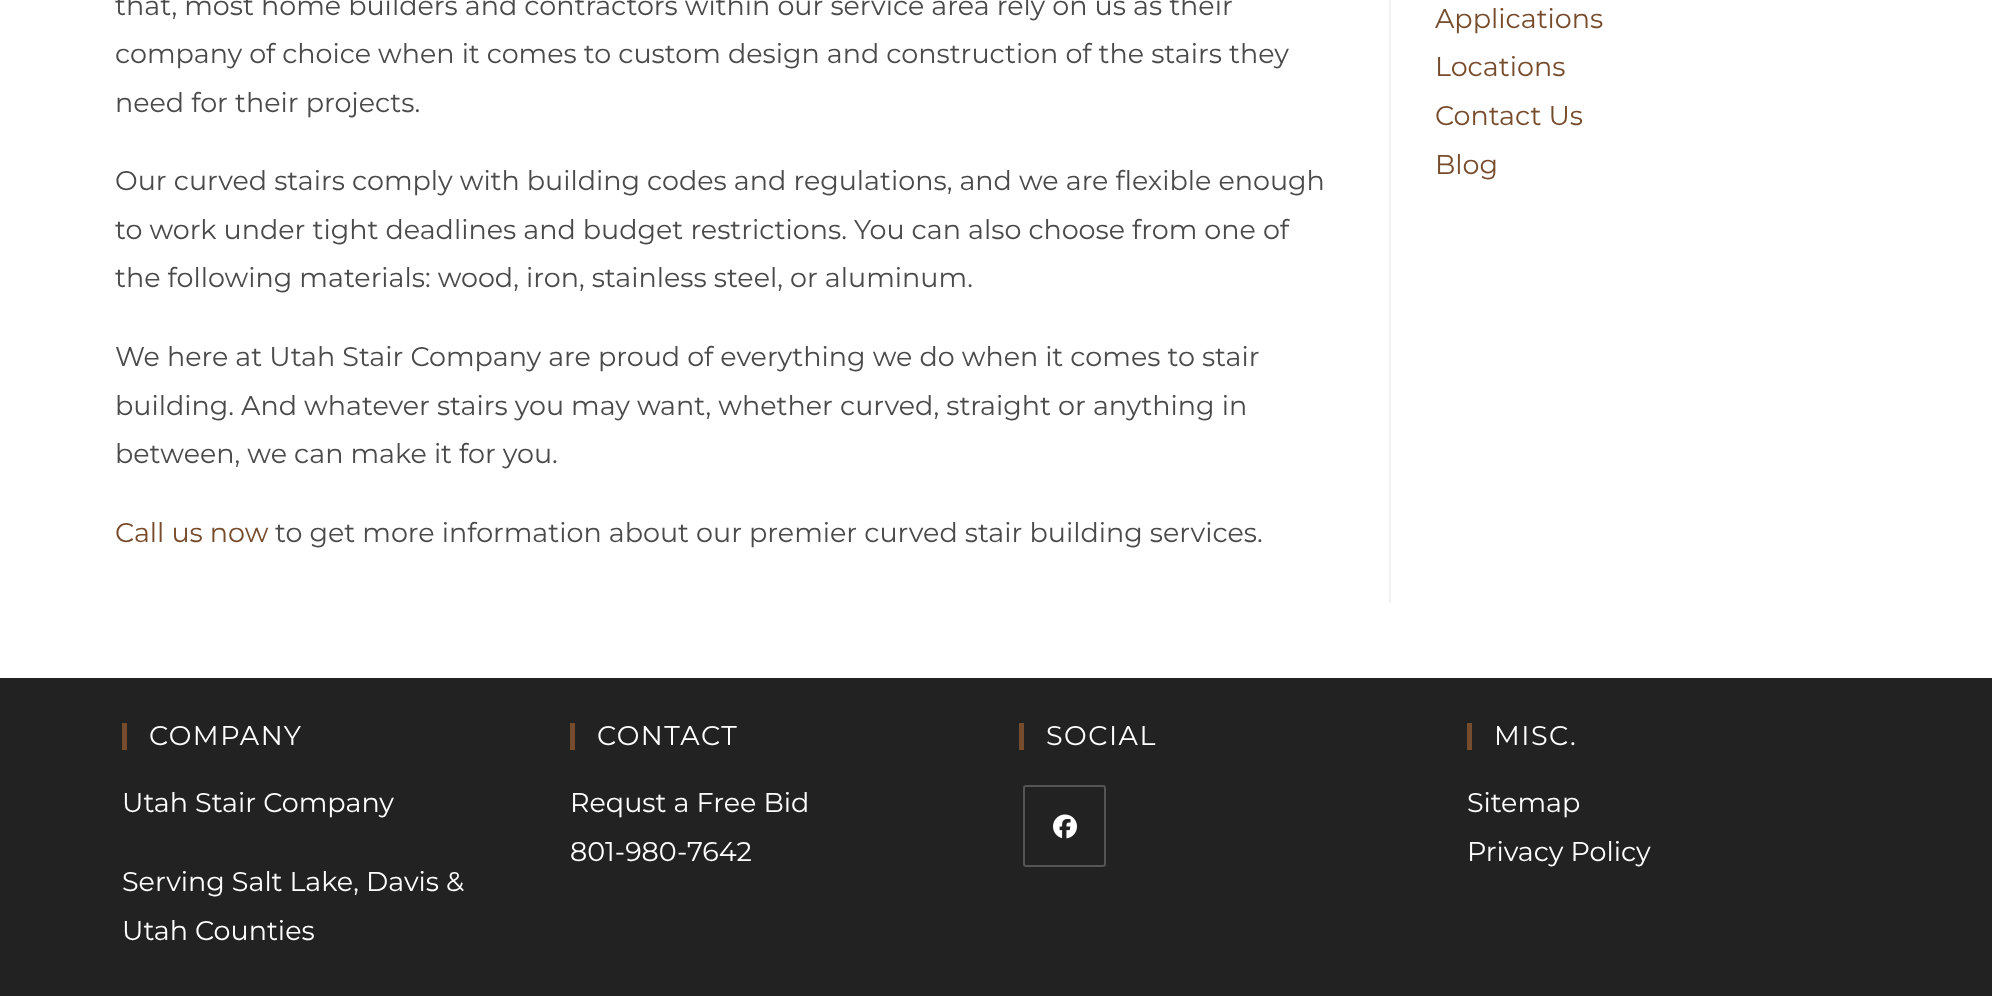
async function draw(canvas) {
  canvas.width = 1992
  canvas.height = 996
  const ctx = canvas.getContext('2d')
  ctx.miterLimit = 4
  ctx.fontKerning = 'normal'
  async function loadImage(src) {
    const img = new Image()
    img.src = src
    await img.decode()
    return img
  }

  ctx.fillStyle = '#fff'
  ctx.fillRect(0, 0, 1992, 996)
  ctx.fillStyle = '#f1f1f1'
  ctx.fillRect(1389, 0, 2, 603)
  ctx.font = '27px Montserrat'
  ctx.fillStyle = '#4a4a4a'
  ctx.fillText('that, most home builders and contractors within our service area rely on us as their', 115, 15)
  ctx.fillText('company of choice when it comes to custom design and construction of the stairs they', 115, 63)
  ctx.fillText('need for their projects.', 115, 112)
  ctx.fillText('Our curved stairs comply with building codes and regulations, and we are flexible enough', 115, 190)
  ctx.fillText('to work under tight deadlines and budget restrictions. You can also choose from one of', 115, 239)
  ctx.fillText('the following materials: wood, iron, stainless steel, or aluminum.', 115, 287)
  ctx.fillText('We here at Utah Stair Company are proud of everything we do when it comes to stair', 115, 366)
  ctx.fillText('building. And whatever stairs you may want, whether curved, straight or anything in', 115, 415)
  ctx.fillText('between, we can make it for you.', 115, 463)
  ctx.fillStyle = '#774c2c'
  ctx.fillText('Call us now', 115, 542)
  ctx.fillStyle = '#4a4a4a'
  ctx.fillText('to get more information about our premier curved stair building services.', 275, 542)
  ctx.fillStyle = '#774c2c'
  ctx.fillText('Applications', 1435, 28)
  ctx.fillText('Locations', 1435, 76)
  ctx.fillText('Contact Us', 1435, 125)
  ctx.fillText('Blog', 1435, 174)
  ctx.fillStyle = '#222'
  ctx.fillRect(0, 678, 1992, 318)
  ctx.fillStyle = '#774c2c'
  ctx.fillRect(122, 723, 5, 27)
  ctx.letterSpacing = '1.5px'
  ctx.fillStyle = '#fff'
  ctx.fillText('COMPANY', 149, 745)
  ctx.letterSpacing = '0px'
  ctx.fillText('Utah Stair Company', 122, 812)
  ctx.fillText('Serving Salt Lake, Davis &', 122, 891)
  ctx.fillText('Utah Counties', 122, 940)
  ctx.fillStyle = '#774c2c'
  ctx.fillRect(570, 723, 5, 27)
  ctx.letterSpacing = '1.5px'
  ctx.fillStyle = '#fff'
  ctx.fillText('CONTACT', 597, 745)
  ctx.letterSpacing = '0px'
  ctx.fillText('Requst a Free Bid', 570, 812)
  ctx.fillText('801-980-7642', 570, 861)
  ctx.fillStyle = '#774c2c'
  ctx.fillRect(1019, 723, 5, 27)
  ctx.letterSpacing = '1.5px'
  ctx.fillStyle = '#fff'
  ctx.fillText('SOCIAL', 1046, 745)
  ctx.beginPath()
  ctx.roundRect(1024, 786, 81, 80, 2)
  ctx.strokeStyle = '#555'
  ctx.lineWidth = 2
  ctx.stroke()
  ctx.drawImage(await loadImage('image0.png'), 1053, 814, 24, 25)
  ctx.fillStyle = '#774c2c'
  ctx.fillRect(1467, 723, 5, 27)
  ctx.fillStyle = '#fff'
  ctx.fillText('MISC.', 1494, 745)
  ctx.letterSpacing = '0px'
  ctx.fillText('Sitemap', 1467, 812)
  ctx.fillText('Privacy Policy', 1467, 861)
}

draw(document.querySelector('canvas'))
